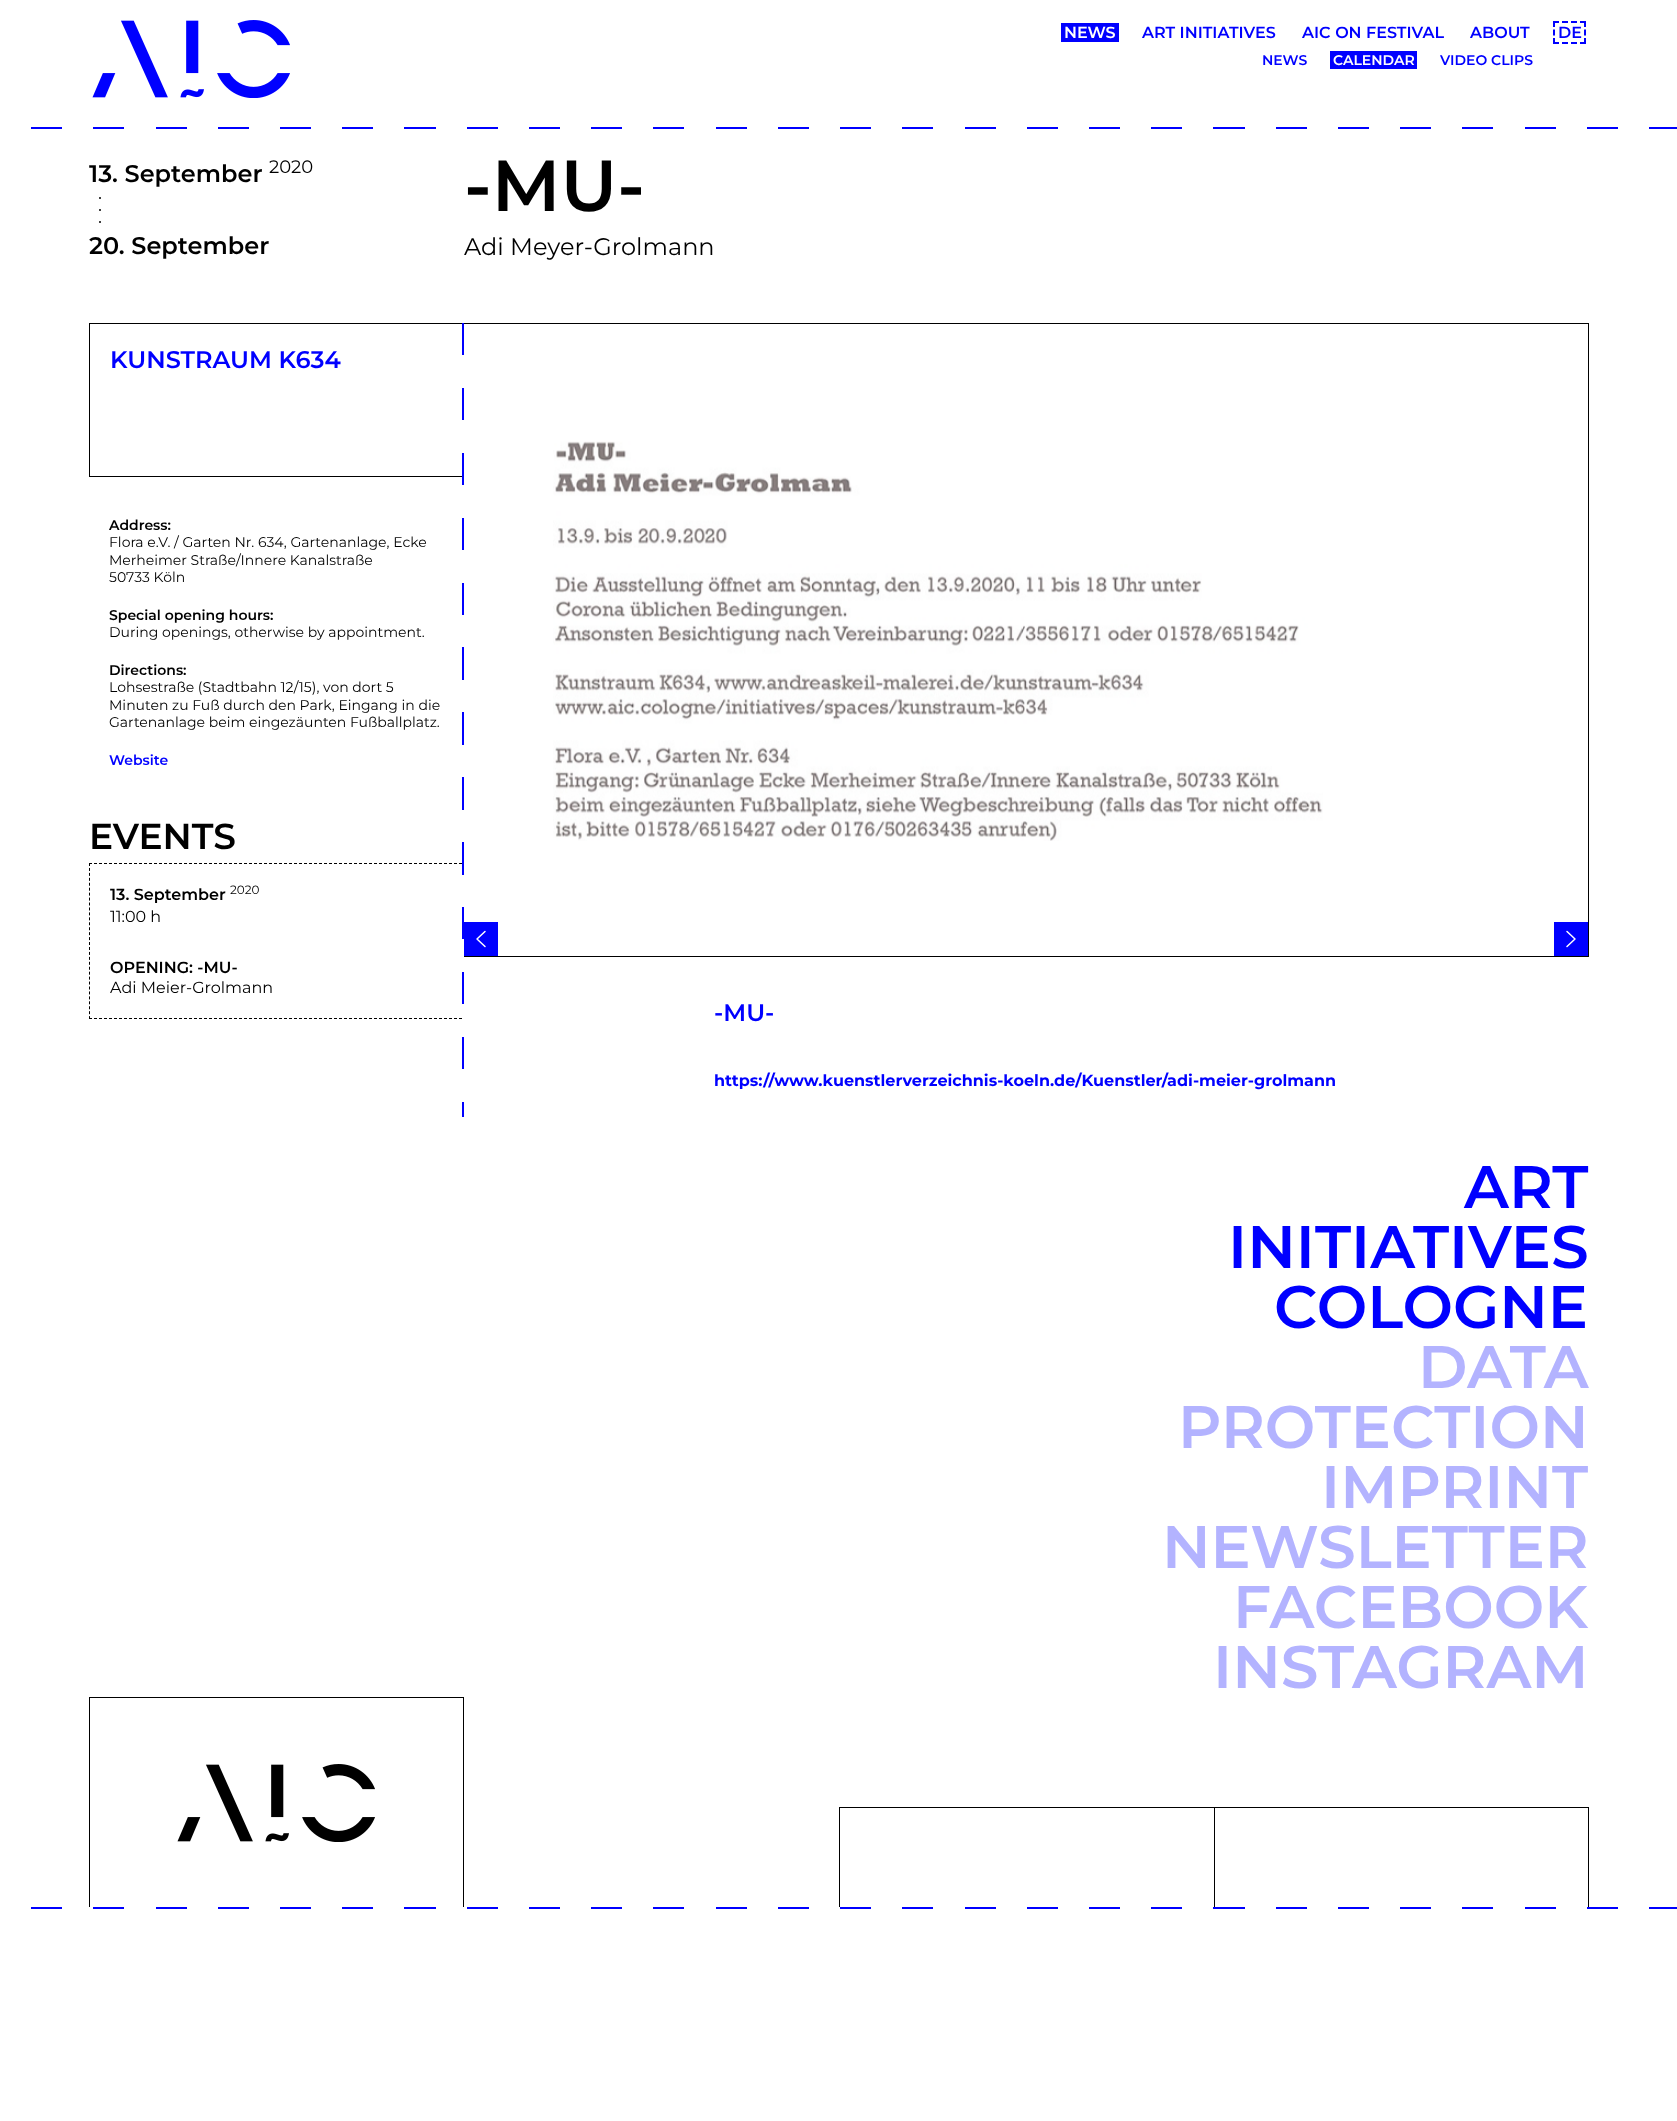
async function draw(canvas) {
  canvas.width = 1677
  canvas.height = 2121
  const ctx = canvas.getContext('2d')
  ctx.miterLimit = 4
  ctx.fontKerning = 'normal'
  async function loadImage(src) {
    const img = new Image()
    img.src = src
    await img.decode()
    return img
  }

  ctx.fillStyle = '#fff'
  ctx.fillRect(0, 0, 1677, 2121)
  ctx.drawImage(await loadImage('image0.png'), 31, 127, 1646, 2)
  ctx.drawImage(await loadImage('image1.png'), 92, 20, 198, 78)
  ctx.fillStyle = '#00f'
  ctx.fillRect(1061, 23, 58, 19)
  ctx.font = '600 16px Montserrat'
  ctx.fillStyle = '#fff'
  ctx.fillText('NEWS', 1064, 38)
  ctx.fillStyle = '#00f'
  ctx.fillText('ART INITIATIVES', 1142, 38)
  ctx.fillText('AIC ON FESTIVAL', 1302, 38)
  ctx.fillText('ABOUT', 1470, 38)
  ctx.fillText('DE', 1558, 38)
  ctx.beginPath()
  ctx.moveTo(1553, 22)
  ctx.lineTo(1586, 22)
  ctx.strokeStyle = '#00f'
  ctx.lineWidth = 2
  ctx.setLineDash([6, 3])
  ctx.stroke()
  ctx.beginPath()
  ctx.moveTo(1585, 21)
  ctx.lineTo(1585, 27)
  ctx.moveTo(1585, 29.5)
  ctx.lineTo(1585, 35.5)
  ctx.moveTo(1585, 38)
  ctx.lineTo(1585, 44)
  ctx.setLineDash([])
  ctx.stroke()
  ctx.beginPath()
  ctx.moveTo(1553, 43)
  ctx.lineTo(1586, 43)
  ctx.setLineDash([6, 3])
  ctx.stroke()
  ctx.beginPath()
  ctx.moveTo(1554, 21)
  ctx.lineTo(1554, 27)
  ctx.moveTo(1554, 29.5)
  ctx.lineTo(1554, 35.5)
  ctx.moveTo(1554, 38)
  ctx.lineTo(1554, 44)
  ctx.setLineDash([])
  ctx.stroke()
  ctx.font = '600 14px Montserrat'
  ctx.fillText('NEWS', 1262, 65)
  ctx.fillRect(1330, 51, 87, 18)
  ctx.fillStyle = '#fff'
  ctx.fillText('CALENDAR', 1333, 65)
  ctx.fillStyle = '#00f'
  ctx.fillText('VIDEO CLIPS', 1440, 65)
  ctx.font = '600 24px Montserrat'
  ctx.fillStyle = '#000'
  ctx.fillText('13. September', 89, 182)
  ctx.font = '18px Montserrat'
  ctx.fillText('2020', 269, 173)
  ctx.beginPath()
  ctx.arc(100, 198, 1, 0, 2 * Math.PI)
  ctx.fill()
  ctx.beginPath()
  ctx.arc(100, 210, 1, 0, 2 * Math.PI)
  ctx.fill()
  ctx.beginPath()
  ctx.arc(100, 222, 1, 0, 2 * Math.PI)
  ctx.fill()
  ctx.font = '600 24px Montserrat'
  ctx.fillText('20. September', 89, 254)
  ctx.font = '600 72px Montserrat'
  ctx.fillText('-MU-', 464, 211)
  ctx.font = '24px Montserrat'
  ctx.fillText('Adi Meyer-Grolmann', 464, 255)
  ctx.drawImage(await loadImage('image2.png'), 462, 323, 2, 794)
  ctx.fillRect(89, 323, 373, 1)
  ctx.fillRect(89, 476, 373, 1)
  ctx.fillRect(89, 323, 1, 154)
  ctx.font = '600 24px Montserrat'
  ctx.fillStyle = '#00f'
  ctx.fillText('KUNSTRAUM K634', 110, 368)
  ctx.font = '600 14px Montserrat'
  ctx.fillStyle = '#000'
  ctx.fillText('Address:', 109, 530)
  ctx.font = '14px Montserrat'
  ctx.fillText('Flora e.V. / Garten Nr. 634, Gartenanlage, Ecke', 109, 547)
  ctx.fillText('Merheimer Straße/Innere Kanalstraße', 109, 565)
  ctx.fillText('50733 Köln', 109, 582)
  ctx.font = '600 14px Montserrat'
  ctx.fillText('Special opening hours:', 109, 620)
  ctx.font = '14px Montserrat'
  ctx.fillText('During openings, otherwise by appointment.', 109, 637)
  ctx.font = '600 14px Montserrat'
  ctx.fillText('Directions:', 109, 675)
  ctx.font = '14px Montserrat'
  ctx.fillText('Lohsestraße (Stadtbahn 12/15), von dort 5', 109, 692)
  ctx.fillText('Minuten zu Fuß durch den Park, Eingang in die', 109, 710)
  ctx.fillText('Gartenanlage beim eingezäunten Fußballplatz.', 109, 727)
  ctx.font = '600 14px Montserrat'
  ctx.fillStyle = '#00f'
  ctx.fillText('Website', 109, 765)
  ctx.font = '600 36px Montserrat'
  ctx.fillStyle = '#000'
  ctx.fillText('EVENTS', 89, 849)
  ctx.beginPath()
  ctx.moveTo(89, 863.5)
  ctx.lineTo(462, 863.5)
  ctx.strokeStyle = '#000'
  ctx.lineWidth = 1
  ctx.setLineDash([3, 2])
  ctx.stroke()
  ctx.beginPath()
  ctx.moveTo(89, 1018.5)
  ctx.lineTo(462, 1018.5)
  ctx.stroke()
  ctx.beginPath()
  ctx.moveTo(89.5, 863)
  ctx.lineTo(89.5, 1019)
  ctx.setLineDash([3, 1.94])
  ctx.stroke()
  ctx.font = '600 16px Montserrat'
  ctx.fillText('13. September', 110, 900)
  ctx.font = '12px Montserrat'
  ctx.fillText('2020', 230, 894)
  ctx.font = '16px Montserrat'
  ctx.fillText('11:00 h', 110, 922)
  ctx.font = '600 16px Montserrat'
  ctx.fillText('OPENING: -MU-', 110, 973)
  ctx.font = '16px Montserrat'
  ctx.fillText('Adi Meier-Grolmann', 110, 993)
  ctx.fillRect(464, 323, 1125, 1)
  ctx.fillRect(1588, 323, 1, 634)
  ctx.fillRect(464, 956, 1125, 1)
  ctx.drawImage(await loadImage('image3.png'), 553, 441, 770, 400)
  ctx.fillStyle = '#00f'
  ctx.fillRect(464, 922, 34, 34)
  ctx.beginPath()
  ctx.moveTo(485, 946.5)
  ctx.lineTo(477, 939)
  ctx.lineTo(485, 931.5)
  ctx.strokeStyle = '#fff'
  ctx.lineWidth = 1.5
  ctx.lineCap = 'round'
  ctx.lineJoin = 'round'
  ctx.setLineDash([])
  ctx.stroke()
  ctx.fillRect(1554, 922, 34, 34)
  ctx.beginPath()
  ctx.moveTo(1567, 931.5)
  ctx.lineTo(1575, 939)
  ctx.lineTo(1567, 946.5)
  ctx.stroke()
  ctx.font = '600 24px Montserrat'
  ctx.fillText('-MU-', 714, 1021)
  ctx.font = 'bold 16px Montserrat'
  ctx.fillText('https://www.kuenstlerverzeichnis-koeln.de/Kuenstler/adi-meier-grolmann', 714, 1086)
  ctx.font = '600 60px Montserrat'
  ctx.fillText('ART', 1464, 1208)
  ctx.fillText('INITIATIVES', 1228, 1268)
  ctx.fillText('COLOGNE', 1274, 1328)
  ctx.fillStyle = '#b3b3ff'
  ctx.fillText('DATA', 1418, 1388)
  ctx.fillText('PROTECTION', 1178, 1448)
  ctx.fillText('IMPRINT', 1321, 1508)
  ctx.fillText('NEWSLETTER', 1162, 1568)
  ctx.fillText('FACEBOOK', 1233, 1628)
  ctx.fillText('INSTAGRAM', 1213, 1688)
  ctx.drawImage(await loadImage('image0.png'), 31, 1907, 1646, 2)
  ctx.fillStyle = '#000'
  ctx.fillRect(89, 1697, 375, 1)
  ctx.fillRect(463, 1697, 1, 210)
  ctx.fillRect(89, 1697, 1, 210)
  ctx.drawImage(await loadImage('image4.png'), 177, 1764, 198, 78)
  ctx.fillRect(839, 1807, 750, 1)
  ctx.fillRect(839, 1807, 1, 100)
  ctx.fillRect(1588, 1807, 1, 100)
  ctx.fillRect(1214, 1807, 1, 100)
}

draw(document.querySelector('canvas'))
